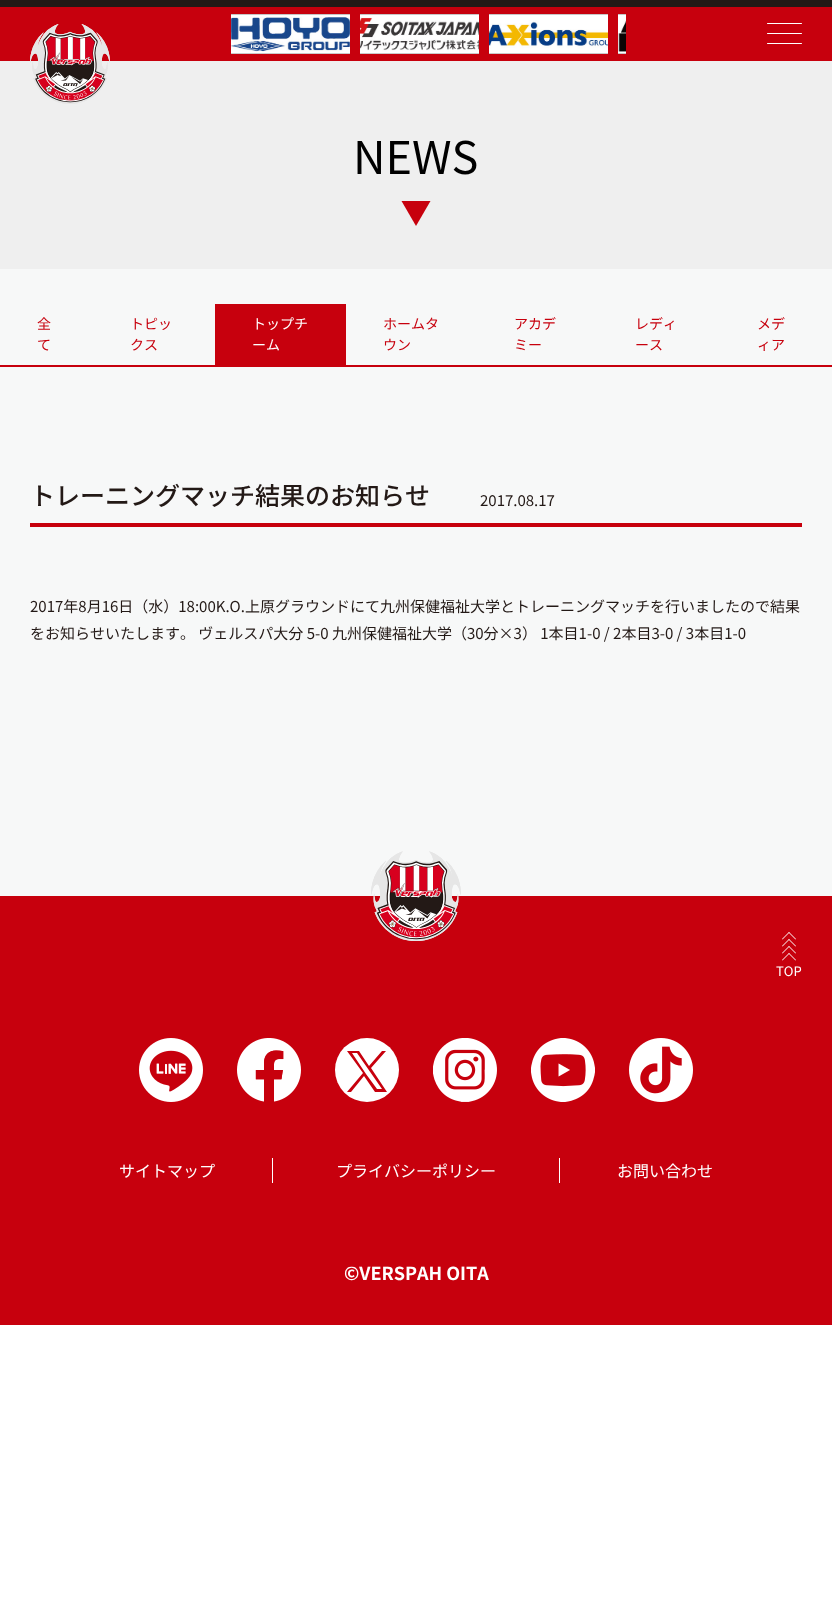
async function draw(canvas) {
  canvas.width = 832
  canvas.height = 1613
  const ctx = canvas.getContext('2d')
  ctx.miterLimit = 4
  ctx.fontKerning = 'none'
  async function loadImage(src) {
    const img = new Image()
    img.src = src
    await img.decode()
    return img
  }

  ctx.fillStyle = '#fff'
  ctx.fillRect(0, 0, 832, 1613)
  ctx.fillStyle = '#c7000d'
  ctx.fillRect(0, 7, 832, 54)
  ctx.fillStyle = '#231916'
  ctx.fillRect(0, 0, 832, 7)
  ctx.fillStyle = '#efefef'
  ctx.fillRect(0, 61, 832, 208)
  ctx.drawImage(await loadImage('image0.png'), 30, 24, 80, 80)
  ctx.drawImage(await loadImage('image1.png'), 231, 14, 119, 40)
  ctx.drawImage(await loadImage('image2.png'), 360, 14, 119, 40)
  ctx.drawImage(await loadImage('image3.png'), 489, 14, 119, 40)
  ctx.drawImage(await loadImage('image4.png'), 618, 14, 8, 40)
  ctx.fillStyle = '#fff'
  ctx.beginPath()
  ctx.roundRect(767, 23, 35, 1, 0.5)
  ctx.fill()
  ctx.beginPath()
  ctx.roundRect(767, 33, 35, 1, 0.5)
  ctx.fill()
  ctx.beginPath()
  ctx.roundRect(767, 43, 35, 1, 0.5)
  ctx.fill()
  ctx.fillStyle = '#f7f8f8'
  ctx.fillRect(0, 269, 832, 627)
  ctx.font = '45px Noto Sans JP'
  ctx.fillStyle = '#000'
  ctx.fillText('NEWS', 353, 174)
  ctx.fillStyle = '#c7000d'
  ctx.beginPath()
  ctx.moveTo(416, 226)
  ctx.lineTo(430.5, 201)
  ctx.lineTo(401.5, 201)
  ctx.closePath()
  ctx.fill()
  ctx.fillRect(0, 365, 832, 2)
  ctx.font = '14px Noto Sans JP'
  ctx.fillText('全', 37, 329)
  ctx.fillText('て', 37, 350)
  ctx.fillText('トピッ', 130, 329)
  ctx.fillText('クス', 130, 350)
  ctx.fillRect(215, 304, 131, 61)
  ctx.fillStyle = '#fff'
  ctx.fillText('トップチ', 252, 329)
  ctx.fillText('ーム', 252, 350)
  ctx.fillStyle = '#c7000d'
  ctx.fillText('ホームタ', 383, 329)
  ctx.fillText('ウン', 383, 350)
  ctx.fillText('アカデ', 514, 329)
  ctx.fillText('ミー', 514, 350)
  ctx.fillText('レディ', 635, 329)
  ctx.fillText('ース', 635, 350)
  ctx.fillText('メデ', 757, 329)
  ctx.fillText('ィア', 757, 350)
  ctx.fillRect(30, 523, 772, 4)
  ctx.font = '500 25px Noto Sans JP'
  ctx.fillStyle = '#231916'
  ctx.fillText('トレーニングマッチ結果のお知らせ', 30, 505)
  ctx.font = '15px Noto Sans JP'
  ctx.fillText('2017.08.17', 480, 506)
  ctx.fillText('2017年8月16日（水）18:00K.O.上原グラウンドにて九州保健福祉大学とトレーニングマッチを行いましたので結果', 30, 612)
  ctx.fillText('をお知らせいたします。 ヴェルスパ大分 5-0 九州保健福祉大学（30分×3） 1本目1-0 / 2本目3-0 / 3本目1-0', 30, 639)
  ctx.fillStyle = '#c7000d'
  ctx.fillRect(0, 896, 832, 429)
  ctx.drawImage(await loadImage('image5.png'), 371, 851, 90, 90)
  ctx.fillStyle = '#fff'
  ctx.beginPath()
  ctx.moveTo(789.5, 932.5)
  ctx.lineTo(782.5, 939.5)
  ctx.lineTo(782, 939)
  ctx.lineTo(789, 932)
  ctx.closePath()
  ctx.fill()
  ctx.beginPath()
  ctx.moveTo(796, 939)
  ctx.lineTo(795.5, 939.5)
  ctx.lineTo(788.5, 932.5)
  ctx.lineTo(789, 932)
  ctx.closePath()
  ctx.fill()
  ctx.beginPath()
  ctx.moveTo(789.5, 939.5)
  ctx.lineTo(782.5, 946.5)
  ctx.lineTo(782, 946)
  ctx.lineTo(789, 939)
  ctx.closePath()
  ctx.fill()
  ctx.beginPath()
  ctx.moveTo(796, 946)
  ctx.lineTo(795.5, 946.5)
  ctx.lineTo(788.5, 939.5)
  ctx.lineTo(789, 939)
  ctx.closePath()
  ctx.fill()
  ctx.beginPath()
  ctx.moveTo(789.5, 946.5)
  ctx.lineTo(782.5, 953.5)
  ctx.lineTo(782, 953)
  ctx.lineTo(789, 946)
  ctx.closePath()
  ctx.fill()
  ctx.beginPath()
  ctx.moveTo(796, 953)
  ctx.lineTo(795.5, 953.5)
  ctx.lineTo(788.5, 946.5)
  ctx.lineTo(789, 946)
  ctx.closePath()
  ctx.fill()
  ctx.beginPath()
  ctx.moveTo(789.5, 953.5)
  ctx.lineTo(782.5, 960.5)
  ctx.lineTo(782, 960)
  ctx.lineTo(789, 953)
  ctx.closePath()
  ctx.fill()
  ctx.beginPath()
  ctx.moveTo(796, 960)
  ctx.lineTo(795.5, 960.5)
  ctx.lineTo(788.5, 953.5)
  ctx.lineTo(789, 953)
  ctx.closePath()
  ctx.fill()
  ctx.font = '13px Noto Sans JP'
  ctx.fillText('TOP', 776, 976)
  ctx.drawImage(await loadImage('image6.png'), 139, 1038, 64, 64)
  ctx.drawImage(await loadImage('image7.png'), 237, 1038, 64, 64)
  ctx.beginPath()
  ctx.arc(367, 1070, 32, 0, 2 * Math.PI)
  ctx.fill()
  ctx.fillStyle = '#c7000d'
  ctx.beginPath()
  ctx.moveTo(371, 1068)
  ctx.lineTo(386, 1051)
  ctx.lineTo(382, 1051)
  ctx.lineTo(369, 1066)
  ctx.lineTo(359, 1051)
  ctx.lineTo(347, 1051)
  ctx.lineTo(363, 1073)
  ctx.lineTo(347, 1092)
  ctx.lineTo(351, 1092)
  ctx.lineTo(364, 1076)
  ctx.lineTo(375, 1092)
  ctx.lineTo(387, 1092)
  ctx.closePath()
  ctx.moveTo(366, 1074)
  ctx.lineTo(352, 1053)
  ctx.lineTo(357, 1053)
  ctx.lineTo(382, 1089)
  ctx.lineTo(377, 1089)
  ctx.closePath()
  ctx.fill()
  ctx.drawImage(await loadImage('image8.png'), 433, 1038, 64, 64)
  ctx.drawImage(await loadImage('image9.png'), 531, 1038, 64, 64)
  ctx.drawImage(await loadImage('image10.png'), 629, 1038, 64, 64)
  ctx.font = '16px Noto Sans JP'
  ctx.fillStyle = '#fff'
  ctx.fillText('サイトマップ', 119, 1177)
  ctx.fillRect(272, 1158, 1, 25)
  ctx.fillText('プライバシーポリシー', 336, 1177)
  ctx.fillRect(559, 1158, 1, 25)
  ctx.fillText('お問い合わせ', 617, 1177)
  ctx.font = 'bold 18px Noto Sans JP'
  ctx.fillText('©VERSPAH OITA', 344, 1280)
}

draw(document.querySelector('canvas'))
